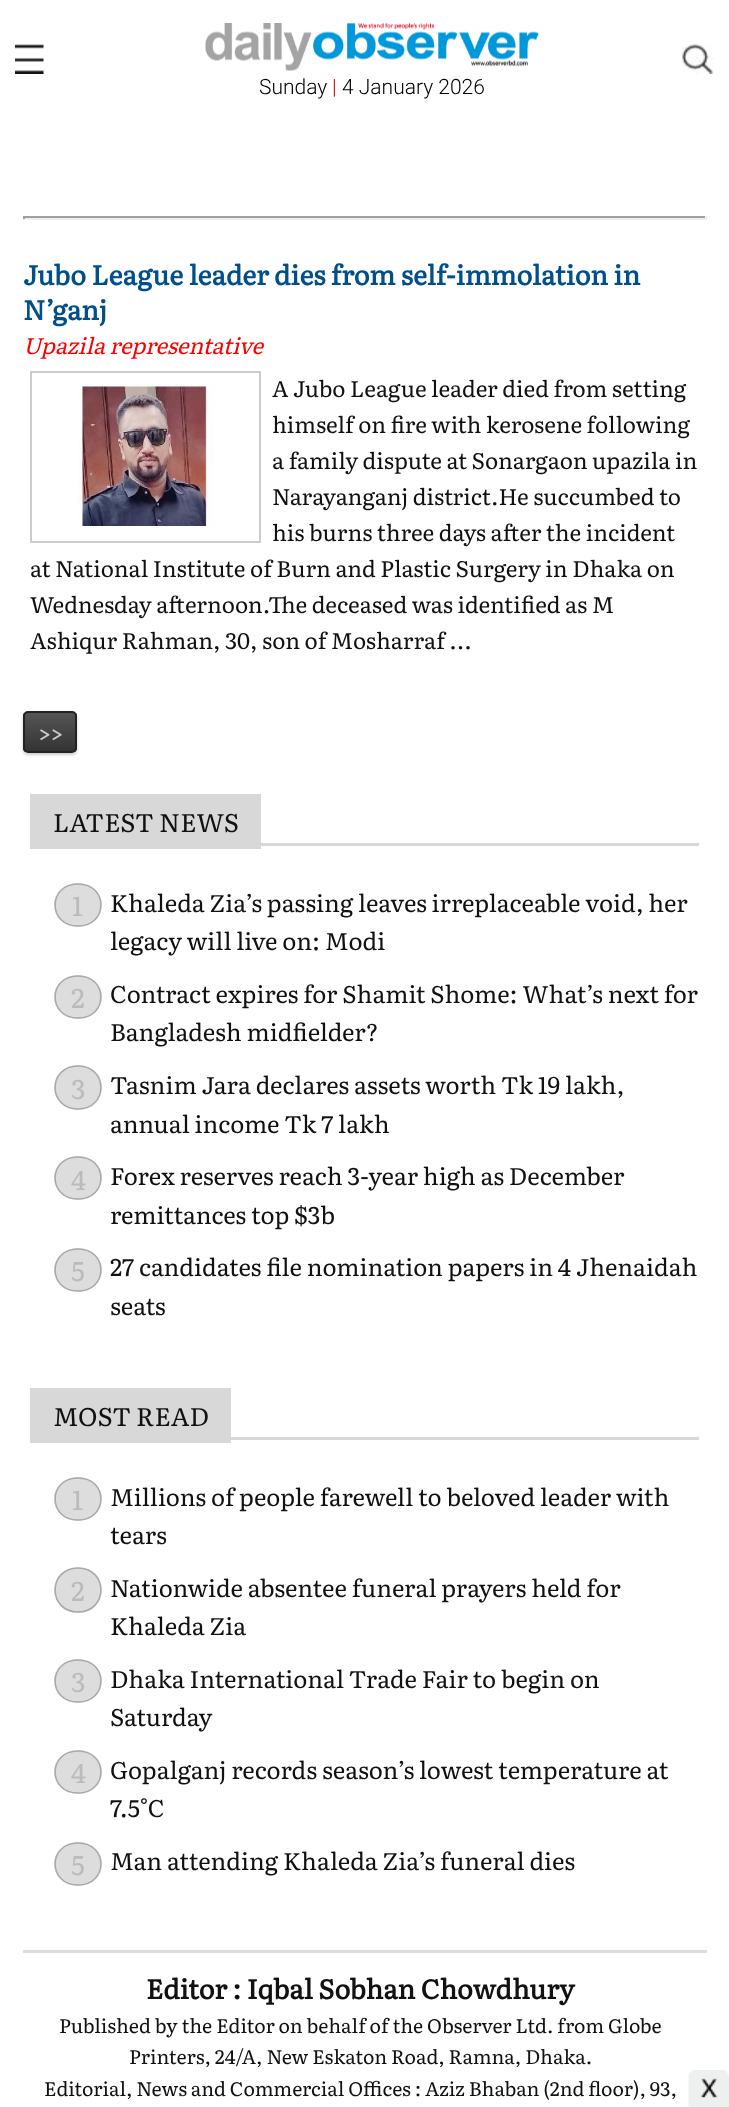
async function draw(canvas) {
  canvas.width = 729
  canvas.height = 2107
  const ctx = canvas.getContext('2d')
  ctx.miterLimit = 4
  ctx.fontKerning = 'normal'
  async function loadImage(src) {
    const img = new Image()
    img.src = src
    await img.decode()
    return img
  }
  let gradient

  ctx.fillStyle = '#fff'
  ctx.fillRect(0, 0, 729, 2107)
  ctx.drawImage(await loadImage('image0.png'), 15, 44, 29, 30)
  ctx.drawImage(await loadImage('image1.png'), 682, 44, 32, 30)
  ctx.drawImage(await loadImage('image2.png'), 205, 23, 334, 48)
  ctx.font = '300 21px Roboto'
  ctx.fillStyle = '#000'
  ctx.fillText('Sunday', 259, 94)
  ctx.fillStyle = '#c00'
  ctx.fillText('|', 332, 94)
  ctx.fillStyle = '#000'
  ctx.fillText('4 January 2026', 342, 94)
  ctx.fillStyle = '#9f9f9f'
  ctx.fillRect(23, 216, 684, 2)
  ctx.fillStyle = '#eee'
  ctx.fillRect(705, 216, 2, 3)
  ctx.fillRect(23, 218, 684, 2)
  ctx.fillStyle = '#9f9f9f'
  ctx.fillRect(23, 216, 2, 3)
  ctx.font = 'bold 27px Literata'
  ctx.fillStyle = '#004f8b'
  ctx.fillText('Jubo League leader dies from self-immolation in', 23, 285)
  ctx.fillText('N’ganj', 23, 320)
  ctx.font = 'italic 22.5px Literata'
  ctx.fillStyle = '#f00'
  ctx.fillText('Upazila representative', 23, 354)
  ctx.strokeStyle = '#ccc'
  ctx.lineWidth = 2
  ctx.strokeRect(31, 372, 229, 170)
  ctx.drawImage(await loadImage('image3.png'), 78, 386, 137, 140)
  ctx.font = '22.5px Literata'
  ctx.fillStyle = '#111'
  ctx.fillText('A Jubo League leader died from setting', 272, 397)
  ctx.fillText('himself on fire with kerosene following', 272, 433)
  ctx.fillText('a family dispute at Sonargaon upazila in', 272, 469)
  ctx.fillText('Narayanganj district.He succumbed to', 272, 505)
  ctx.fillText('his burns three days after the incident', 272, 541)
  ctx.fillText('at National Institute of Burn and Plastic Surgery in Dhaka on', 30, 577)
  ctx.fillText('Wednesday afternoon.The deceased was identified as M', 30, 613)
  ctx.fillText('Ashiqur Rahman, 30, son of Mosharraf ...', 30, 649)
  ctx.save()
  ctx.beginPath()
  ctx.moveTo(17, 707)
  ctx.lineTo(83, 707)
  ctx.lineTo(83, 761)
  ctx.lineTo(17, 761)
  ctx.closePath()
  ctx.moveTo(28, 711)
  ctx.lineTo(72, 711)
  ctx.bezierCurveTo(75, 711, 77, 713, 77, 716)
  ctx.lineTo(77, 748)
  ctx.bezierCurveTo(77, 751, 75, 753, 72, 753)
  ctx.lineTo(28, 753)
  ctx.bezierCurveTo(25, 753, 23, 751, 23, 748)
  ctx.lineTo(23, 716)
  ctx.bezierCurveTo(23, 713, 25, 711, 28, 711)
  ctx.closePath()
  ctx.clip('evenodd')
  ctx.fillStyle = '#00000033'
  ctx.filter = 'blur(1.5px)'
  ctx.beginPath()
  ctx.roundRect(23, 713, 54, 42, 5)
  ctx.fill()
  ctx.filter = 'none'
  ctx.restore()
  ctx.save()
  ctx.beginPath()
  ctx.roundRect(23, 711, 54, 42, 5)
  ctx.clip()
  gradient = ctx.createLinearGradient(50, 713, 50, 752)
  gradient.addColorStop(0, '#555')
  gradient.addColorStop(1, '#333')
  ctx.fillStyle = gradient
  ctx.fillRect(23, 713, 54, 39)
  ctx.restore()
  ctx.beginPath()
  ctx.roundRect(24, 712, 52, 40, 4)
  ctx.strokeStyle = '#222'
  ctx.stroke()
  ctx.font = 'bold 21px Literata'
  ctx.fillStyle = '#ccc'
  ctx.fillText('>>', 38, 741)
  ctx.fillStyle = '#d8d8d8'
  ctx.fillRect(261, 843, 438, 3)
  ctx.fillRect(30, 794, 231, 55)
  ctx.font = '25.5px Literata'
  ctx.fillStyle = '#111'
  ctx.fillText('LATEST NEWS', 53, 832)
  ctx.fillStyle = '#ddd'
  ctx.beginPath()
  ctx.ellipse(78, 905, 24, 22, 0, 0, 2 * Math.PI)
  ctx.fill()
  ctx.beginPath()
  ctx.moveTo(78, 884)
  ctx.bezierCurveTo(108.5, 884, 108.5, 926, 78, 926)
  ctx.bezierCurveTo(47.5, 926, 47.5, 884, 78, 884)
  ctx.closePath()
  ctx.strokeStyle = '#aaa'
  ctx.lineWidth = 1.5
  ctx.stroke()
  ctx.font = '27px Literata'
  ctx.fillStyle = '#bbb'
  ctx.fillText('1', 72, 916)
  ctx.font = '24px Literata'
  ctx.fillStyle = '#111'
  ctx.fillText('Khaleda Zia’s passing leaves irreplaceable void, her', 110, 912)
  ctx.fillText('legacy will live on: Modi', 110, 950)
  ctx.fillStyle = '#ddd'
  ctx.beginPath()
  ctx.ellipse(78, 997, 24, 22, 0, 0, 2 * Math.PI)
  ctx.fill()
  ctx.beginPath()
  ctx.moveTo(78, 976)
  ctx.bezierCurveTo(108.5, 976, 108.5, 1018, 78, 1018)
  ctx.bezierCurveTo(47.5, 1018, 47.5, 976, 78, 976)
  ctx.closePath()
  ctx.stroke()
  ctx.font = '27px Literata'
  ctx.fillStyle = '#bbb'
  ctx.fillText('2', 71, 1008)
  ctx.font = '24px Literata'
  ctx.fillStyle = '#111'
  ctx.fillText('Contract expires for Shamit Shome: What’s next for', 110, 1003)
  ctx.fillText('Bangladesh midfielder?', 110, 1041)
  ctx.fillStyle = '#ddd'
  ctx.beginPath()
  ctx.ellipse(78, 1087.5, 24, 22.5, 0, 0, 2 * Math.PI)
  ctx.fill()
  ctx.beginPath()
  ctx.moveTo(78, 1066)
  ctx.bezierCurveTo(108.5, 1066, 108.5, 1109, 78, 1109)
  ctx.bezierCurveTo(47.5, 1109, 47.5, 1066, 78, 1066)
  ctx.closePath()
  ctx.stroke()
  ctx.font = '27px Literata'
  ctx.fillStyle = '#bbb'
  ctx.fillText('3', 71, 1099)
  ctx.font = '24px Literata'
  ctx.fillStyle = '#111'
  ctx.fillText('Tasnim Jara declares assets worth Tk 19 lakh,', 110, 1094)
  ctx.fillText('annual income Tk 7 lakh', 110, 1133)
  ctx.fillStyle = '#ddd'
  ctx.beginPath()
  ctx.ellipse(78, 1178, 24, 22, 0, 0, 2 * Math.PI)
  ctx.fill()
  ctx.beginPath()
  ctx.moveTo(78, 1157)
  ctx.bezierCurveTo(108.5, 1157, 108.5, 1199, 78, 1199)
  ctx.bezierCurveTo(47.5, 1199, 47.5, 1157, 78, 1157)
  ctx.closePath()
  ctx.stroke()
  ctx.font = '27px Literata'
  ctx.fillStyle = '#bbb'
  ctx.fillText('4', 71, 1190)
  ctx.font = '24px Literata'
  ctx.fillStyle = '#111'
  ctx.fillText('Forex reserves reach 3-year high as December', 110, 1185)
  ctx.fillText('remittances top $3b', 110, 1224)
  ctx.fillStyle = '#ddd'
  ctx.beginPath()
  ctx.ellipse(78, 1270, 24, 22, 0, 0, 2 * Math.PI)
  ctx.fill()
  ctx.beginPath()
  ctx.moveTo(78, 1249)
  ctx.bezierCurveTo(108.5, 1249, 108.5, 1291, 78, 1291)
  ctx.bezierCurveTo(47.5, 1291, 47.5, 1249, 78, 1249)
  ctx.closePath()
  ctx.stroke()
  ctx.font = '27px Literata'
  ctx.fillStyle = '#bbb'
  ctx.fillText('5', 71, 1281)
  ctx.font = '24px Literata'
  ctx.fillStyle = '#111'
  ctx.fillText('27 candidates file nomination papers in 4 Jhenaidah', 110, 1276)
  ctx.fillText('seats', 110, 1315)
  ctx.fillStyle = '#d8d8d8'
  ctx.fillRect(231, 1437, 468, 3)
  ctx.fillRect(30, 1388, 201, 55)
  ctx.font = '25.5px Literata'
  ctx.fillStyle = '#111'
  ctx.fillText('MOST READ', 53, 1426)
  ctx.fillStyle = '#ddd'
  ctx.beginPath()
  ctx.ellipse(78, 1499, 24, 22, 0, 0, 2 * Math.PI)
  ctx.fill()
  ctx.beginPath()
  ctx.moveTo(78, 1478)
  ctx.bezierCurveTo(108.5, 1478, 108.5, 1520, 78, 1520)
  ctx.bezierCurveTo(47.5, 1520, 47.5, 1478, 78, 1478)
  ctx.closePath()
  ctx.stroke()
  ctx.font = '27px Literata'
  ctx.fillStyle = '#bbb'
  ctx.fillText('1', 72, 1510)
  ctx.font = '24px Literata'
  ctx.fillStyle = '#111'
  ctx.fillText('Millions of people farewell to beloved leader with', 110, 1506)
  ctx.fillText('tears', 110, 1544)
  ctx.fillStyle = '#ddd'
  ctx.beginPath()
  ctx.ellipse(78, 1590, 24, 22.5, 0, 0, 2 * Math.PI)
  ctx.fill()
  ctx.beginPath()
  ctx.moveTo(78, 1568)
  ctx.bezierCurveTo(108.5, 1568, 108.5, 1612, 78, 1612)
  ctx.bezierCurveTo(47.5, 1612, 47.5, 1568, 78, 1568)
  ctx.closePath()
  ctx.stroke()
  ctx.font = '27px Literata'
  ctx.fillStyle = '#bbb'
  ctx.fillText('2', 71, 1601)
  ctx.font = '24px Literata'
  ctx.fillStyle = '#111'
  ctx.fillText('Nationwide absentee funeral prayers held for', 110, 1597)
  ctx.fillText('Khaleda Zia', 110, 1635)
  ctx.fillStyle = '#ddd'
  ctx.beginPath()
  ctx.ellipse(78, 1681, 24, 22, 0, 0, 2 * Math.PI)
  ctx.fill()
  ctx.beginPath()
  ctx.moveTo(78, 1660)
  ctx.bezierCurveTo(108.5, 1660, 108.5, 1702, 78, 1702)
  ctx.bezierCurveTo(47.5, 1702, 47.5, 1660, 78, 1660)
  ctx.closePath()
  ctx.stroke()
  ctx.font = '27px Literata'
  ctx.fillStyle = '#bbb'
  ctx.fillText('3', 71, 1692)
  ctx.font = '24px Literata'
  ctx.fillStyle = '#111'
  ctx.fillText('Dhaka International Trade Fair to begin on', 110, 1688)
  ctx.fillText('Saturday', 110, 1726)
  ctx.fillStyle = '#ddd'
  ctx.beginPath()
  ctx.ellipse(78, 1772, 24, 22, 0, 0, 2 * Math.PI)
  ctx.fill()
  ctx.beginPath()
  ctx.moveTo(78, 1751)
  ctx.bezierCurveTo(108.5, 1751, 108.5, 1793, 78, 1793)
  ctx.bezierCurveTo(47.5, 1793, 47.5, 1751, 78, 1751)
  ctx.closePath()
  ctx.stroke()
  ctx.font = '27px Literata'
  ctx.fillStyle = '#bbb'
  ctx.fillText('4', 71, 1783)
  ctx.font = '24px Literata'
  ctx.fillStyle = '#111'
  ctx.fillText('Gopalganj records season’s lowest temperature at', 110, 1779)
  ctx.fillText('7.5°C', 110, 1817)
  ctx.fillStyle = '#ddd'
  ctx.beginPath()
  ctx.ellipse(78, 1864, 24, 22, 0, 0, 2 * Math.PI)
  ctx.fill()
  ctx.beginPath()
  ctx.moveTo(78, 1843)
  ctx.bezierCurveTo(108.5, 1843, 108.5, 1885, 78, 1885)
  ctx.bezierCurveTo(47.5, 1885, 47.5, 1843, 78, 1843)
  ctx.closePath()
  ctx.stroke()
  ctx.font = '27px Literata'
  ctx.fillStyle = '#bbb'
  ctx.fillText('5', 71, 1875)
  ctx.font = '24px Literata'
  ctx.fillStyle = '#111'
  ctx.fillText('Man attending Khaleda Zia’s funeral dies', 110, 1870)
  ctx.fillStyle = '#ddd'
  ctx.fillRect(23, 1950, 684, 3)
  ctx.font = 'bold 27px Literata'
  ctx.fillStyle = '#111'
  ctx.fillText('Editor : Iqbal Sobhan Chowdhury', 146, 1999)
  ctx.font = '19.5px Literata'
  ctx.fillText('Published by the Editor on behalf of the Observer Ltd. from Globe', 59, 2033)
  ctx.fillText('Printers, 24/A, New Eskaton Road, Ramna, Dhaka.', 129, 2064)
  ctx.fillText('Editorial, News and Commercial Offices : Aziz Bhaban (2nd floor), 93,', 44, 2096)
  ctx.drawImage(await loadImage('image4.png'), 688, 2070, 41, 37)
}

draw(document.querySelector('canvas'))
